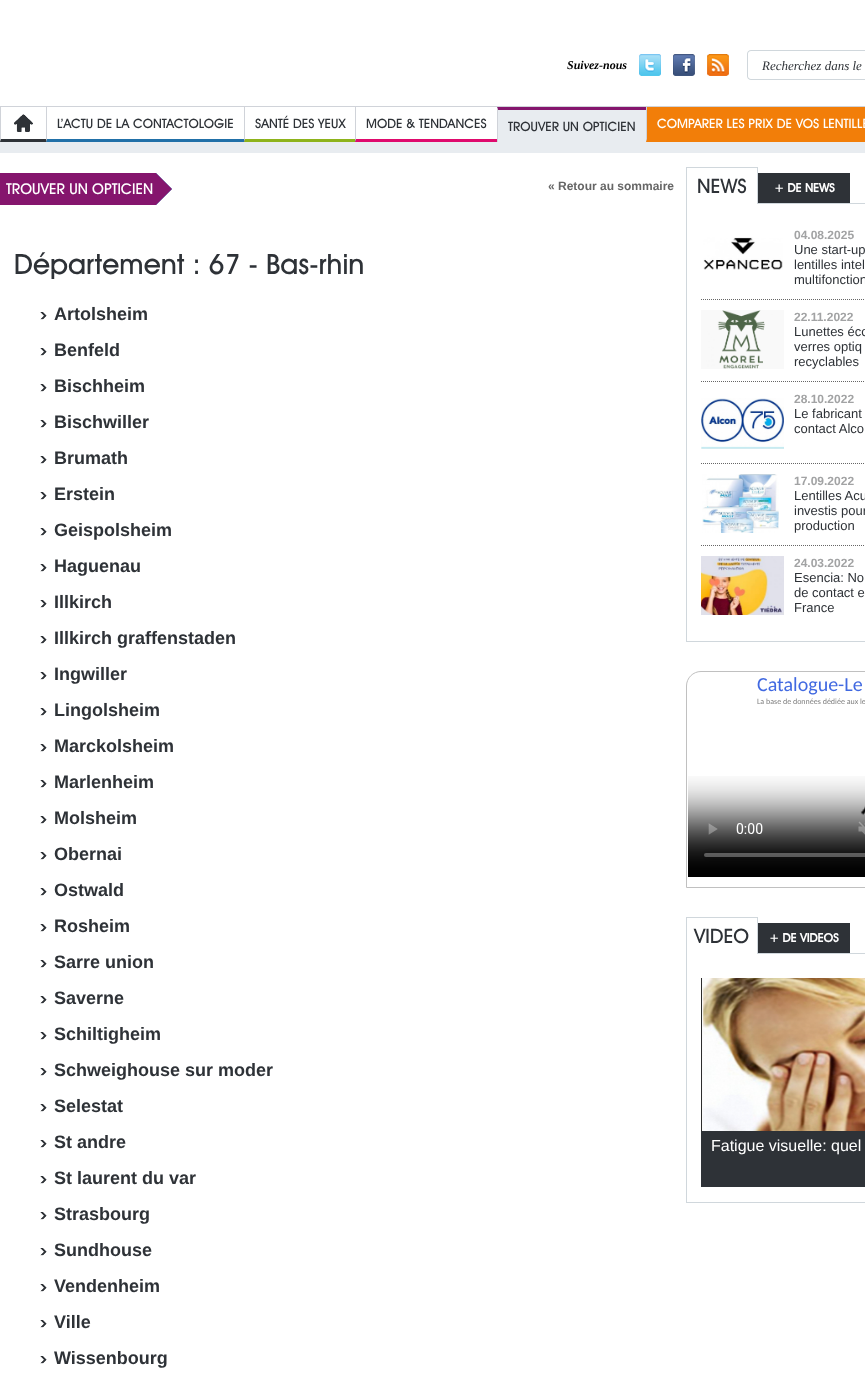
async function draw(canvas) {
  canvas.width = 865
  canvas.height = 1398
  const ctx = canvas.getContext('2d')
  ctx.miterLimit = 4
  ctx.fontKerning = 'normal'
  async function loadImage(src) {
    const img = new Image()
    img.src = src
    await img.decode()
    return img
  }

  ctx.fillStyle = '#e8ecf0'
  ctx.fillRect(0, 0, 865, 1398)
  ctx.fillStyle = '#fff'
  ctx.fillRect(0, 0, 865, 106)
  ctx.font = 'italic bold 12px Liberation Serif'
  ctx.fillStyle = '#000'
  ctx.fillText('Suivez-nous', 567, 69)
  ctx.drawImage(await loadImage('image0.png'), 639, 54, 22, 22)
  ctx.drawImage(await loadImage('image1.png'), 673, 54, 22, 22)
  ctx.drawImage(await loadImage('image2.png'), 707, 54, 22, 22)
  ctx.drawImage(await loadImage('image3.png'), 747, 50, 118, 30)
  ctx.font = 'italic 13px Liberation Serif'
  ctx.fillStyle = '#2e3237'
  ctx.fillText('Recherchez dans le', 762, 70)
  ctx.fillStyle = '#fff'
  ctx.fillRect(1, 107, 496, 32)
  ctx.fillStyle = '#d0d3d9'
  ctx.fillRect(0, 106, 865, 1)
  ctx.fillStyle = '#2e3237'
  ctx.fillRect(0, 139, 356, 3)
  ctx.fillStyle = '#d0d3d9'
  ctx.beginPath()
  ctx.moveTo(0, 142)
  ctx.lineTo(0, 107)
  ctx.lineTo(1, 107)
  ctx.lineTo(1, 139)
  ctx.closePath()
  ctx.fill()
  ctx.drawImage(await loadImage('image4.png'), 14, 114, 19, 18)
  ctx.fillStyle = '#2170a8'
  ctx.beginPath()
  ctx.moveTo(244, 142)
  ctx.lineTo(46, 142)
  ctx.lineTo(47, 139)
  ctx.lineTo(244, 139)
  ctx.closePath()
  ctx.fill()
  ctx.fillStyle = '#d0d3d9'
  ctx.beginPath()
  ctx.moveTo(46, 142)
  ctx.lineTo(46, 107)
  ctx.lineTo(47, 107)
  ctx.lineTo(47, 139)
  ctx.closePath()
  ctx.fill()
  ctx.font = '500 13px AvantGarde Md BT'
  ctx.fillStyle = '#2e3237'
  ctx.fillText('L’ACTU DE LA CONTACTOLOGIE', 57, 128)
  ctx.fillStyle = '#8eb31b'
  ctx.beginPath()
  ctx.moveTo(355, 142)
  ctx.lineTo(244, 142)
  ctx.lineTo(245, 139)
  ctx.lineTo(355, 139)
  ctx.closePath()
  ctx.fill()
  ctx.fillStyle = '#d0d3d9'
  ctx.beginPath()
  ctx.moveTo(244, 142)
  ctx.lineTo(244, 107)
  ctx.lineTo(245, 107)
  ctx.lineTo(245, 139)
  ctx.closePath()
  ctx.fill()
  ctx.fillStyle = '#2e3237'
  ctx.fillText('SANTÉ DES YEUX', 255, 128)
  ctx.fillStyle = '#df0a6d'
  ctx.beginPath()
  ctx.moveTo(497, 142)
  ctx.lineTo(355, 142)
  ctx.lineTo(356, 139)
  ctx.lineTo(497, 139)
  ctx.closePath()
  ctx.fill()
  ctx.fillStyle = '#d0d3d9'
  ctx.beginPath()
  ctx.moveTo(355, 142)
  ctx.lineTo(355, 107)
  ctx.lineTo(356, 107)
  ctx.lineTo(356, 139)
  ctx.closePath()
  ctx.fill()
  ctx.fillStyle = '#2e3237'
  ctx.fillText('MODE & TENDANCES', 366, 128)
  ctx.fillStyle = '#85156d'
  ctx.beginPath()
  ctx.moveTo(497, 107)
  ctx.lineTo(646, 107)
  ctx.lineTo(646, 110)
  ctx.lineTo(498, 110)
  ctx.closePath()
  ctx.fill()
  ctx.fillStyle = '#d0d3d9'
  ctx.beginPath()
  ctx.moveTo(497, 142)
  ctx.lineTo(497, 107)
  ctx.lineTo(498, 110)
  ctx.lineTo(498, 142)
  ctx.closePath()
  ctx.fill()
  ctx.fillStyle = '#2e3237'
  ctx.fillText('TROUVER UN OPTICIEN', 508, 131)
  ctx.fillStyle = '#f27e09'
  ctx.fillRect(646, 107, 219, 35)
  ctx.fillStyle = '#d0d3d9'
  ctx.beginPath()
  ctx.moveTo(646, 142)
  ctx.lineTo(646, 107)
  ctx.lineTo(647, 107)
  ctx.lineTo(647, 139)
  ctx.closePath()
  ctx.fill()
  ctx.fillStyle = '#fff'
  ctx.fillText('COMPARER LES PRIX DE VOS LENTILLE', 657, 128)
  ctx.fillRect(0, 153, 865, 1245)
  ctx.fillStyle = '#85156d'
  ctx.fillRect(0, 173, 155, 32)
  ctx.font = '500 15px AvantGarde Md BT'
  ctx.fillStyle = '#fff'
  ctx.fillText('TROUVER UN OPTICIEN', 6, 194)
  ctx.drawImage(await loadImage('image5.png'), 155, 173, 17, 32)
  ctx.font = 'bold 12px Liberation Sans'
  ctx.fillStyle = '#666'
  ctx.fillText('« Retour au sommaire', 548, 190)
  ctx.font = '500 28px AvantGarde Md BT'
  ctx.fillStyle = '#2e3237'
  ctx.fillText('Département : 67 - Bas-rhin', 14, 274)
  ctx.drawImage(await loadImage('image6.png'), 40, 312, 7, 8)
  ctx.font = 'bold 18px Liberation Sans'
  ctx.fillText('Artolsheim', 54, 320)
  ctx.drawImage(await loadImage('image6.png'), 40, 348, 7, 8)
  ctx.fillText('Benfeld', 54, 356)
  ctx.drawImage(await loadImage('image6.png'), 40, 384, 7, 8)
  ctx.fillText('Bischheim', 54, 392)
  ctx.drawImage(await loadImage('image6.png'), 40, 420, 7, 8)
  ctx.fillText('Bischwiller', 54, 428)
  ctx.drawImage(await loadImage('image6.png'), 40, 456, 7, 8)
  ctx.fillText('Brumath', 54, 464)
  ctx.drawImage(await loadImage('image6.png'), 40, 492, 7, 8)
  ctx.fillText('Erstein', 54, 500)
  ctx.drawImage(await loadImage('image6.png'), 40, 528, 7, 8)
  ctx.fillText('Geispolsheim', 54, 536)
  ctx.drawImage(await loadImage('image6.png'), 40, 564, 7, 8)
  ctx.fillText('Haguenau', 54, 572)
  ctx.drawImage(await loadImage('image6.png'), 40, 600, 7, 8)
  ctx.fillText('Illkirch', 54, 608)
  ctx.drawImage(await loadImage('image6.png'), 40, 636, 7, 8)
  ctx.fillText('Illkirch graffenstaden', 54, 644)
  ctx.drawImage(await loadImage('image6.png'), 40, 672, 7, 8)
  ctx.fillText('Ingwiller', 54, 680)
  ctx.drawImage(await loadImage('image6.png'), 40, 708, 7, 8)
  ctx.fillText('Lingolsheim', 54, 716)
  ctx.drawImage(await loadImage('image6.png'), 40, 744, 7, 8)
  ctx.fillText('Marckolsheim', 54, 752)
  ctx.drawImage(await loadImage('image6.png'), 40, 780, 7, 8)
  ctx.fillText('Marlenheim', 54, 788)
  ctx.drawImage(await loadImage('image6.png'), 40, 816, 7, 8)
  ctx.fillText('Molsheim', 54, 824)
  ctx.drawImage(await loadImage('image6.png'), 40, 852, 7, 8)
  ctx.fillText('Obernai', 54, 860)
  ctx.drawImage(await loadImage('image6.png'), 40, 888, 7, 8)
  ctx.fillText('Ostwald', 54, 896)
  ctx.drawImage(await loadImage('image6.png'), 40, 924, 7, 8)
  ctx.fillText('Rosheim', 54, 932)
  ctx.drawImage(await loadImage('image6.png'), 40, 960, 7, 8)
  ctx.fillText('Sarre union', 54, 968)
  ctx.drawImage(await loadImage('image6.png'), 40, 996, 7, 8)
  ctx.fillText('Saverne', 54, 1004)
  ctx.drawImage(await loadImage('image6.png'), 40, 1032, 7, 8)
  ctx.fillText('Schiltigheim', 54, 1040)
  ctx.drawImage(await loadImage('image6.png'), 40, 1068, 7, 8)
  ctx.fillText('Schweighouse sur moder', 54, 1076)
  ctx.drawImage(await loadImage('image6.png'), 40, 1104, 7, 8)
  ctx.fillText('Selestat', 54, 1112)
  ctx.drawImage(await loadImage('image6.png'), 40, 1140, 7, 8)
  ctx.fillText('St andre', 54, 1148)
  ctx.drawImage(await loadImage('image6.png'), 40, 1176, 7, 8)
  ctx.fillText('St laurent du var', 54, 1184)
  ctx.drawImage(await loadImage('image6.png'), 40, 1212, 7, 8)
  ctx.fillText('Strasbourg', 54, 1220)
  ctx.drawImage(await loadImage('image6.png'), 40, 1248, 7, 8)
  ctx.fillText('Sundhouse', 54, 1256)
  ctx.drawImage(await loadImage('image6.png'), 40, 1284, 7, 8)
  ctx.fillText('Vendenheim', 54, 1292)
  ctx.drawImage(await loadImage('image6.png'), 40, 1320, 7, 8)
  ctx.fillText('Ville', 54, 1328)
  ctx.drawImage(await loadImage('image6.png'), 40, 1356, 7, 8)
  ctx.fillText('Wissenbourg', 54, 1364)
  ctx.strokeStyle = '#d0d7dc'
  ctx.strokeRect(686.5, 203.5, 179, 438)
  ctx.fillStyle = '#fff'
  ctx.fillRect(687, 203, 70, 1)
  ctx.fillStyle = '#d0d7dc'
  ctx.fillRect(686, 167, 72, 1)
  ctx.fillRect(757, 167, 1, 37)
  ctx.fillRect(686, 167, 1, 37)
  ctx.font = '500 20px AvantGarde Md BT'
  ctx.fillStyle = '#2e3237'
  ctx.fillText('NEWS', 697, 193)
  ctx.fillRect(758, 173, 92, 30)
  ctx.font = 'bold 12px AvantGarde Md BT'
  ctx.fillStyle = '#fff'
  ctx.fillText('+ DE NEWS', 774, 192)
  ctx.drawImage(await loadImage('image7.png'), 703, 237, 80, 33)
  ctx.font = 'bold 12px Liberation Sans'
  ctx.fillStyle = '#a2a3a4'
  ctx.fillText('04.08.2025', 794, 239)
  ctx.font = '13px Liberation Sans'
  ctx.fillStyle = '#2e3237'
  ctx.fillText('Une start-up', 794, 254)
  ctx.fillText('lentilles intel', 794, 269)
  ctx.fillText('multifonction', 794, 284)
  ctx.beginPath()
  ctx.moveTo(701, 299.5)
  ctx.lineTo(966, 299.5)
  ctx.strokeStyle = '#666'
  ctx.setLineDash([1, 1])
  ctx.stroke()
  ctx.drawImage(await loadImage('image8.png'), 701, 310, 83, 59)
  ctx.font = 'bold 12px Liberation Sans'
  ctx.fillStyle = '#a2a3a4'
  ctx.fillText('22.11.2022', 794, 321)
  ctx.font = '13px Liberation Sans'
  ctx.fillStyle = '#2e3237'
  ctx.fillText('Lunettes éco', 794, 336)
  ctx.fillText('verres optiq', 794, 351)
  ctx.fillText('recyclables', 794, 366)
  ctx.beginPath()
  ctx.moveTo(701, 381.5)
  ctx.lineTo(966, 381.5)
  ctx.stroke()
  ctx.drawImage(await loadImage('image9.png'), 701, 398, 83, 51)
  ctx.font = 'bold 12px Liberation Sans'
  ctx.fillStyle = '#a2a3a4'
  ctx.fillText('28.10.2022', 794, 403)
  ctx.font = '13px Liberation Sans'
  ctx.fillStyle = '#2e3237'
  ctx.fillText('Le fabricant', 794, 418)
  ctx.fillText('contact Alco', 794, 433)
  ctx.beginPath()
  ctx.moveTo(701, 463.5)
  ctx.lineTo(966, 463.5)
  ctx.stroke()
  ctx.drawImage(await loadImage('image10.png'), 702, 474, 77, 59)
  ctx.font = 'bold 12px Liberation Sans'
  ctx.fillStyle = '#a2a3a4'
  ctx.fillText('17.09.2022', 794, 485)
  ctx.font = '13px Liberation Sans'
  ctx.fillStyle = '#2e3237'
  ctx.fillText('Lentilles Acu', 794, 500)
  ctx.fillText('investis pour', 794, 515)
  ctx.fillText('production', 794, 530)
  ctx.beginPath()
  ctx.moveTo(701, 545.5)
  ctx.lineTo(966, 545.5)
  ctx.stroke()
  ctx.drawImage(await loadImage('image11.png'), 701, 556, 83, 59)
  ctx.font = 'bold 12px Liberation Sans'
  ctx.fillStyle = '#a2a3a4'
  ctx.fillText('24.03.2022', 794, 567)
  ctx.font = '13px Liberation Sans'
  ctx.fillStyle = '#2e3237'
  ctx.fillText('Esencia: No', 794, 582)
  ctx.fillText('de contact e', 794, 597)
  ctx.fillText('France', 794, 612)
  ctx.beginPath()
  ctx.moveTo(701, 671.5)
  ctx.lineTo(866, 671.5)
  ctx.bezierCurveTo(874, 671.5, 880.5, 678, 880.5, 686)
  ctx.lineTo(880.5, 887.5)
  ctx.lineTo(686.5, 887.5)
  ctx.lineTo(686.5, 686)
  ctx.bezierCurveTo(686.5, 678, 693, 671.5, 701, 671.5)
  ctx.closePath()
  ctx.strokeStyle = '#c0c0c0'
  ctx.setLineDash([])
  ctx.stroke()
  ctx.font = '20px Carlito'
  ctx.fillStyle = '#4169e1'
  ctx.fillText('Catalogue-Le', 757, 691)
  ctx.font = '8px Carlito'
  ctx.fillStyle = '#808080'
  ctx.fillText('La base de données dédiée aux le', 757, 704)
  ctx.drawImage(await loadImage('image12.png'), 688, 776, 177, 101)
  ctx.strokeStyle = '#d0d7dc'
  ctx.strokeRect(686.5, 953.5, 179, 249)
  ctx.fillStyle = '#fff'
  ctx.fillRect(687, 953, 70, 1)
  ctx.fillStyle = '#d0d7dc'
  ctx.fillRect(686, 917, 72, 1)
  ctx.fillRect(757, 917, 1, 37)
  ctx.fillRect(686, 917, 1, 37)
  ctx.font = '500 20px AvantGarde Md BT'
  ctx.fillStyle = '#2e3237'
  ctx.fillText('VIDEO', 694, 943)
  ctx.fillRect(758, 923, 92, 30)
  ctx.font = 'bold 12px AvantGarde Md BT'
  ctx.fillStyle = '#fff'
  ctx.fillText('+ DE VIDEOS', 769, 942)
  ctx.drawImage(await loadImage('image13.png'), 701, 978, 164, 153)
  ctx.fillStyle = '#2e3237'
  ctx.fillRect(701, 1131, 164, 56)
  ctx.font = '16px Liberation Sans'
  ctx.fillStyle = '#fff'
  ctx.fillText('Fatigue visuelle: quel', 711, 1151)
}

draw(document.querySelector('canvas'))
